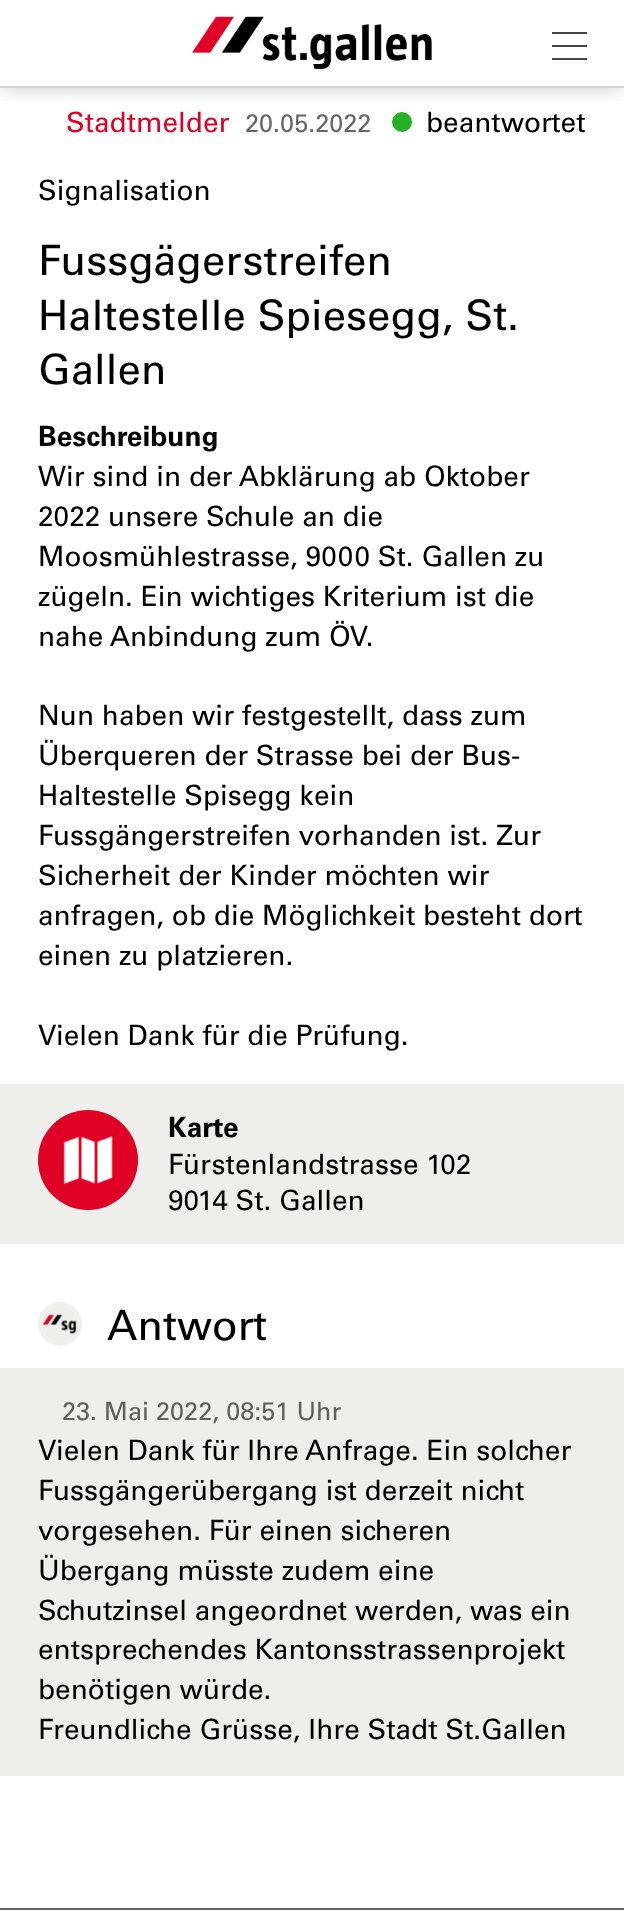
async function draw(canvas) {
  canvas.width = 624
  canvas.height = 1926
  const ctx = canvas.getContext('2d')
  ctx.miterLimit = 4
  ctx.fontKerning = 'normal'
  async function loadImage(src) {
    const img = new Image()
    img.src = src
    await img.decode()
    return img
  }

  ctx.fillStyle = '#fff'
  ctx.fillRect(0, 0, 624, 1926)
  ctx.fillStyle = '#25b125'
  ctx.beginPath()
  ctx.arc(402, 122, 10, 0, 2 * Math.PI)
  ctx.fill()
  ctx.save()
  ctx.beginPath()
  ctx.rect(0, 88, 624, 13)
  ctx.clip()
  ctx.fillStyle = '#00000033'
  ctx.filter = 'blur(10px)'
  ctx.beginPath()
  ctx.rect(0, 0, 624, 88)
  ctx.fill()
  ctx.filter = 'none'
  ctx.restore()
  ctx.fillStyle = '#d6d6d6'
  ctx.fillRect(0, 86, 624, 2)
  ctx.drawImage(await loadImage('image0.png'), 192, 16, 240, 54)
  ctx.fillStyle = '#454545'
  ctx.fillRect(552, 32, 35, 2)
  ctx.fillRect(552, 45, 35, 2)
  ctx.fillRect(552, 58, 35, 2)
  ctx.font = '28px Univers'
  ctx.fillStyle = '#e00025'
  ctx.fillText('Stadtmelder', 66, 132)
  ctx.font = '25.25px Univers'
  ctx.fillStyle = '#666'
  ctx.fillText('20.05.2022', 245, 132)
  ctx.font = '28px Univers'
  ctx.fillStyle = '#000'
  ctx.fillText('beantwortet', 426, 132)
  ctx.fillText('Signalisation', 38, 200)
  ctx.font = '42px Univers'
  ctx.fillText('Fussgägerstreifen', 38, 275)
  ctx.fillText('Haltestelle Spiesegg, St.', 38, 330)
  ctx.fillText('Gallen', 38, 384)
  ctx.font = 'bold 28px Univers'
  ctx.fillText('Beschreibung', 38, 446)
  ctx.font = '28px Univers'
  ctx.fillText('Wir sind in der Abklärung ab Oktober', 38, 486)
  ctx.fillText('2022 unsere Schule an die', 38, 526)
  ctx.fillText('Moosmühlestrasse, 9000 St. Gallen zu', 38, 566)
  ctx.fillText('zügeln. Ein wichtiges Kriterium ist die', 38, 606)
  ctx.fillText('nahe Anbindung zum ÖV.', 38, 646)
  ctx.fillText('Nun haben wir festgestellt, dass zum', 38, 725)
  ctx.fillText('Überqueren der Strasse bei der Bus-', 38, 765)
  ctx.fillText('Haltestelle Spisegg kein', 38, 805)
  ctx.fillText('Fussgängerstreifen vorhanden ist. Zur', 38, 845)
  ctx.fillText('Sicherheit der Kinder möchten wir', 38, 885)
  ctx.fillText('anfragen, ob die Möglichkeit besteht dort', 38, 925)
  ctx.fillText('einen zu platzieren.', 38, 965)
  ctx.fillText('Vielen Dank für die Prüfung.', 38, 1045)
  ctx.fillStyle = '#eeefeb'
  ctx.fillRect(0, 1084, 624, 160)
  ctx.fillStyle = '#e00025'
  ctx.beginPath()
  ctx.arc(88, 1160, 50, 0, 2 * Math.PI)
  ctx.fill()
  ctx.drawImage(await loadImage('image1.png'), 63, 1136, 50, 49)
  ctx.font = 'bold 28px Univers'
  ctx.fillStyle = '#000'
  ctx.fillText('Karte', 168, 1137)
  ctx.font = '28px Univers'
  ctx.fillText('Fürstenlandstrasse 102', 168, 1174)
  ctx.fillText('9014 St. Gallen', 168, 1210)
  ctx.drawImage(await loadImage('image2.png'), 38, 1302, 44, 44)
  ctx.font = '42px Univers'
  ctx.fillText('Antwort', 107, 1340)
  ctx.fillStyle = '#eeefeb'
  ctx.fillRect(0, 1368, 624, 408)
  ctx.font = '25.25px Univers'
  ctx.fillStyle = '#5f605e'
  ctx.fillText('23. Mai 2022, 08:51 Uhr', 62, 1420)
  ctx.font = '28px Univers'
  ctx.fillStyle = '#000'
  ctx.fillText('Vielen Dank für Ihre Anfrage. Ein solcher', 38, 1460)
  ctx.fillText('Fussgängerübergang ist derzeit nicht', 38, 1500)
  ctx.fillText('vorgesehen. Für einen sicheren', 38, 1540)
  ctx.fillText('Übergang müsste zudem eine', 38, 1580)
  ctx.fillText('Schutzinsel angeordnet werden, was ein', 38, 1620)
  ctx.fillText('entsprechendes Kantonsstrassenprojekt', 38, 1659)
  ctx.fillText('benötigen würde.', 38, 1699)
  ctx.fillText('Freundliche Grüsse, Ihre Stadt St.Gallen', 38, 1739)
  ctx.fillStyle = '#646464'
  ctx.fillRect(0, 1908, 624, 2)
}

draw(document.querySelector('canvas'))
